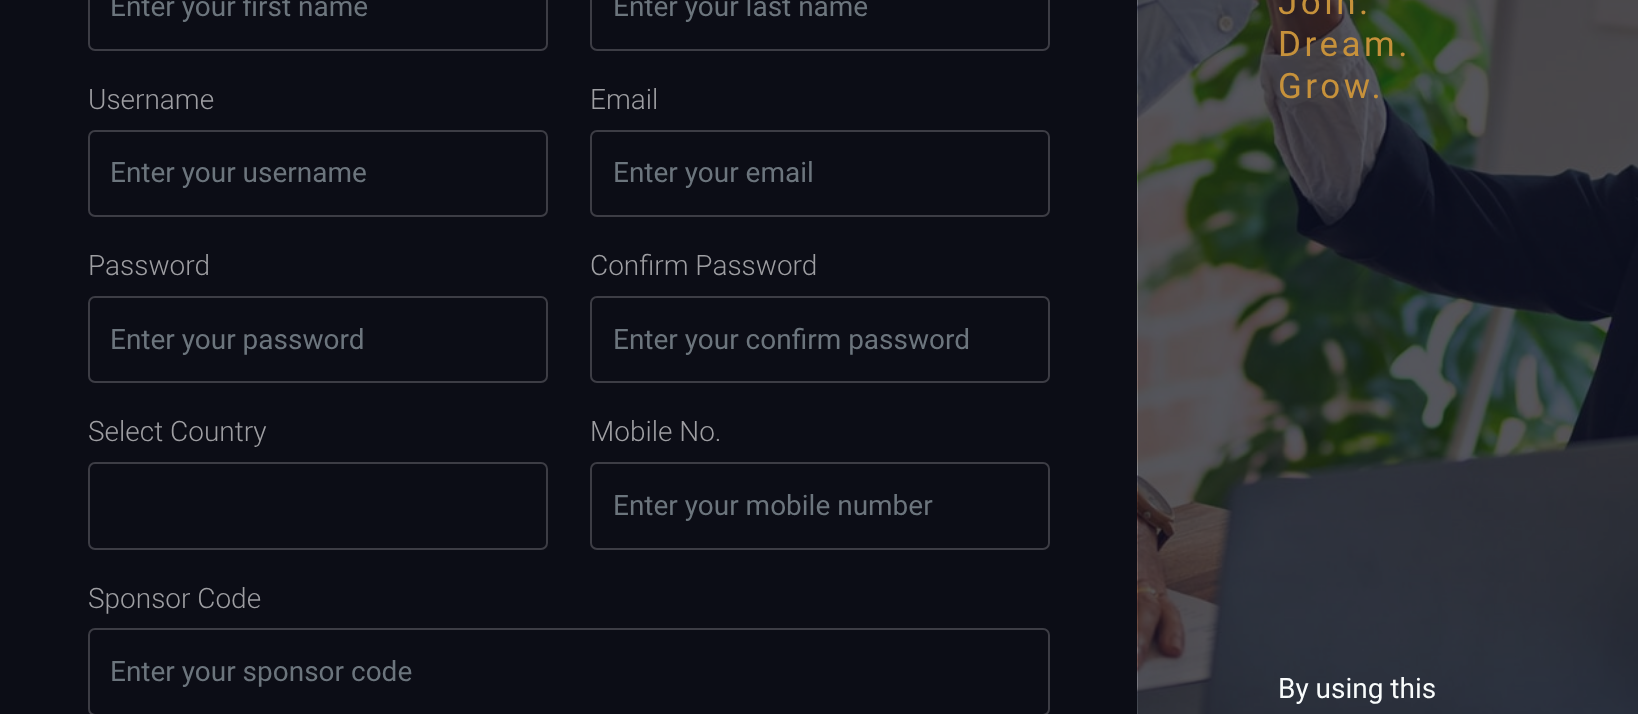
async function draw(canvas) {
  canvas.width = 1638
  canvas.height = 714
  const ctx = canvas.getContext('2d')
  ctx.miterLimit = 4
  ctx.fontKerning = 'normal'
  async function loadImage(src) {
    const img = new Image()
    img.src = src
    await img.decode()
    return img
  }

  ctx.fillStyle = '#0c0d16'
  ctx.fillRect(0, 0, 1638, 714)
  ctx.beginPath()
  ctx.roundRect(89, -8, 458, 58, 6)
  ctx.strokeStyle = '#3d3d45'
  ctx.lineWidth = 2
  ctx.stroke()
  ctx.font = '28px Roboto'
  ctx.fillStyle = '#6c757d'
  ctx.fillText('Enter your first name', 110, 16)
  ctx.beginPath()
  ctx.roundRect(591, -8, 458, 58, 6)
  ctx.stroke()
  ctx.fillText('Enter your last name', 613, 16)
  ctx.font = '300 28px Roboto'
  ctx.fillStyle = '#9e9ea2'
  ctx.fillText('Username', 88, 109)
  ctx.beginPath()
  ctx.roundRect(89, 131, 458, 85, 6)
  ctx.stroke()
  ctx.font = '28px Roboto'
  ctx.fillStyle = '#6c757d'
  ctx.fillText('Enter your username', 110, 182)
  ctx.font = '300 28px Roboto'
  ctx.fillStyle = '#9e9ea2'
  ctx.fillText('Email', 590, 109)
  ctx.beginPath()
  ctx.roundRect(591, 131, 458, 85, 6)
  ctx.stroke()
  ctx.font = '28px Roboto'
  ctx.fillStyle = '#6c757d'
  ctx.fillText('Enter your email', 613, 182)
  ctx.font = '300 28px Roboto'
  ctx.fillStyle = '#9e9ea2'
  ctx.fillText('Password', 88, 275)
  ctx.beginPath()
  ctx.roundRect(89, 297, 458, 85, 6)
  ctx.stroke()
  ctx.font = '28px Roboto'
  ctx.fillStyle = '#6c757d'
  ctx.fillText('Enter your password', 110, 349)
  ctx.font = '300 28px Roboto'
  ctx.fillStyle = '#9e9ea2'
  ctx.fillText('Confirm Password', 590, 275)
  ctx.beginPath()
  ctx.roundRect(591, 297, 458, 85, 6)
  ctx.stroke()
  ctx.font = '28px Roboto'
  ctx.fillStyle = '#6c757d'
  ctx.fillText('Enter your confirm password', 613, 349)
  ctx.font = '300 28px Roboto'
  ctx.fillStyle = '#9e9ea2'
  ctx.fillText('Select Country', 88, 441)
  ctx.beginPath()
  ctx.roundRect(89, 463, 458, 86, 6)
  ctx.stroke()
  ctx.fillText('Mobile No.', 590, 441)
  ctx.beginPath()
  ctx.roundRect(591, 463, 458, 86, 6)
  ctx.stroke()
  ctx.font = '28px Roboto'
  ctx.fillStyle = '#6c757d'
  ctx.fillText('Enter your mobile number', 613, 515)
  ctx.font = '300 28px Roboto'
  ctx.fillStyle = '#9e9ea2'
  ctx.fillText('Sponsor Code', 88, 608)
  ctx.beginPath()
  ctx.roundRect(89, 629, 960, 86, 6)
  ctx.stroke()
  ctx.font = '28px Roboto'
  ctx.fillStyle = '#6c757d'
  ctx.fillText('Enter your sponsor code', 110, 681)
  ctx.drawImage(await loadImage('image0.png'), 1137, 0, 501, 714)
  ctx.letterSpacing = '3.5px'
  ctx.font = '35px Roboto'
  ctx.fillStyle = '#c6913b'
  ctx.fillText('Join.', 1278, 14)
  ctx.fillText('Dream.', 1278, 56)
  ctx.fillText('Grow.', 1278, 98)
  ctx.letterSpacing = '0px'
  ctx.font = '28px Roboto'
  ctx.fillStyle = '#f9fcfc'
  ctx.fillText('By using this', 1278, 698)
}

draw(document.querySelector('canvas'))
